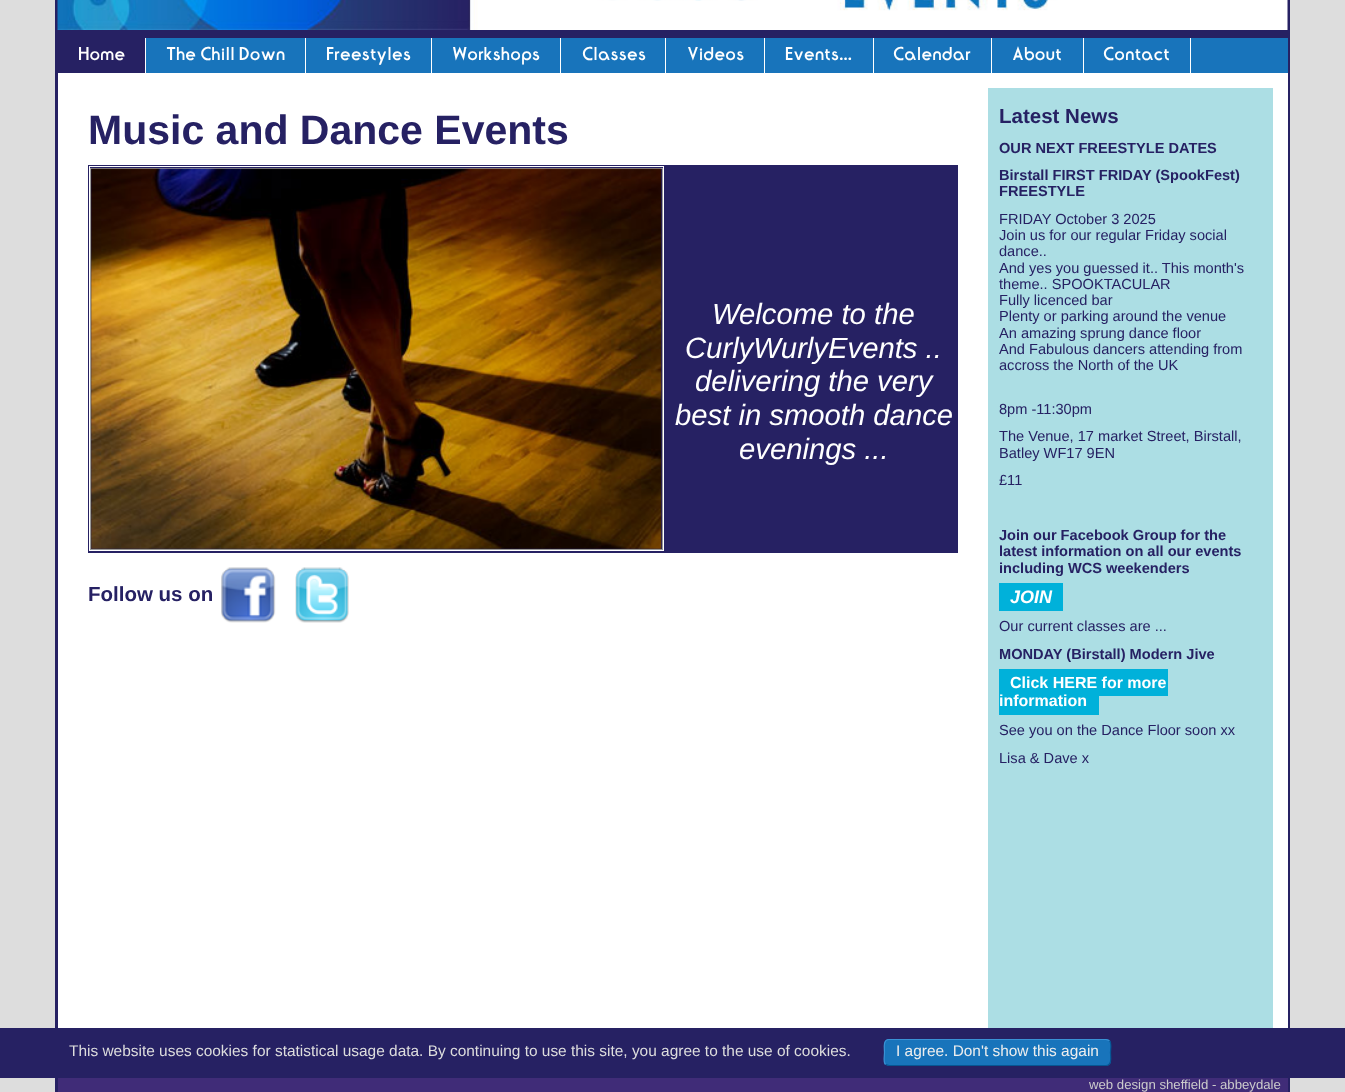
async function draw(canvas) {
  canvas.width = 1345
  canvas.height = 1092
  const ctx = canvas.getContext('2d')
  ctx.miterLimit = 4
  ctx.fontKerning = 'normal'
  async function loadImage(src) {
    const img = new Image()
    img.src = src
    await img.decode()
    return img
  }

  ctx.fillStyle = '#ddd'
  ctx.fillRect(0, 0, 1345, 1092)
  ctx.strokeStyle = '#262163'
  ctx.lineWidth = 3
  ctx.strokeRect(56.5, -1.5, 1232, 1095)
  ctx.drawImage(await loadImage('image0.png'), 57, 0, 1231, 30)
  ctx.fillStyle = '#1874bb'
  ctx.fillRect(146, 38, 1142, 35)
  ctx.fillStyle = '#262163'
  ctx.fillRect(58, 30, 1230, 8)
  ctx.fillRect(58, 38, 87, 35)
  ctx.fillStyle = '#fff'
  ctx.fillRect(145, 38, 1, 35)
  ctx.font = '500 17.5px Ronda'
  ctx.fillText('Home', 78, 60)
  ctx.fillRect(305, 38, 1, 35)
  ctx.fillText('The Chill Down', 166, 60)
  ctx.fillRect(431, 38, 1, 35)
  ctx.fillText('Freestyles', 326, 60)
  ctx.fillRect(560, 38, 1, 35)
  ctx.fillText('Workshops', 452, 60)
  ctx.fillRect(665, 38, 1, 35)
  ctx.fillText('Classes', 582, 60)
  ctx.fillRect(764, 38, 1, 35)
  ctx.fillText('Videos', 687, 60)
  ctx.fillRect(873, 38, 1, 35)
  ctx.fillText('Events...', 785, 60)
  ctx.fillRect(991, 38, 1, 35)
  ctx.fillText('Calendar', 893, 60)
  ctx.fillRect(1083, 38, 1, 35)
  ctx.fillText('About', 1012, 60)
  ctx.fillRect(1190, 38, 1, 35)
  ctx.fillText('Contact', 1103, 60)
  ctx.fillRect(58, 73, 1230, 955)
  ctx.font = 'bold 41px Liberation Sans'
  ctx.fillStyle = '#262163'
  ctx.fillText('Music and Dance Events', 88, 144)
  ctx.fillRect(88, 165, 870, 388)
  ctx.strokeStyle = '#fff'
  ctx.lineWidth = 1
  ctx.strokeRect(89.5, 166.5, 574, 384)
  ctx.strokeStyle = '#999'
  ctx.strokeRect(90.5, 168.5, 572, 381)
  ctx.drawImage(await loadImage('image1.png'), 91, 168, 571, 381)
  ctx.font = 'italic 29.25px Liberation Sans'
  ctx.fillStyle = '#fff'
  ctx.fillText('Welcome to the', 712, 324)
  ctx.fillText('CurlyWurlyEvents ..', 685, 358)
  ctx.fillText('delivering the very', 695, 391)
  ctx.fillText('best in smooth dance', 675, 425)
  ctx.fillText('evenings ...', 739, 459)
  ctx.font = 'bold 20.5px Liberation Sans'
  ctx.fillStyle = '#262163'
  ctx.fillText('Follow us on', 88, 601)
  ctx.drawImage(await loadImage('image2.png'), 221, 567, 55, 56)
  ctx.drawImage(await loadImage('image3.png'), 295, 567, 54, 56)
  ctx.fillStyle = '#acdee4'
  ctx.fillRect(988, 88, 285, 940)
  ctx.fillStyle = '#262163'
  ctx.fillText('Latest News', 999, 123)
  ctx.font = 'bold 14.6px Liberation Sans'
  ctx.fillText('OUR NEXT FREESTYLE DATES', 999, 153)
  ctx.fillText('Birstall FIRST FRIDAY (SpookFest)', 999, 180)
  ctx.fillText('FREESTYLE', 999, 196)
  ctx.font = '14.6px Liberation Sans'
  ctx.fillText('FRIDAY October 3 2025', 999, 224)
  ctx.fillText('Join us for our regular Friday social', 999, 240)
  ctx.fillText('dance..', 999, 256)
  ctx.fillText('And yes you guessed it.. This month\'s', 999, 273)
  ctx.fillText('theme.. SPOOKTACULAR', 999, 289)
  ctx.fillText('Fully licenced bar', 999, 305)
  ctx.fillText('Plenty or parking around the venue', 999, 321)
  ctx.fillText('An amazing sprung dance floor', 999, 338)
  ctx.fillText('And Fabulous dancers attending from', 999, 354)
  ctx.fillText('accross the North of the UK', 999, 370)
  ctx.fillText('8pm -11:30pm', 999, 414)
  ctx.fillText('The Venue, 17 market Street, Birstall,', 999, 441)
  ctx.fillText('Batley WF17 9EN', 999, 458)
  ctx.fillText('£11', 999, 485)
  ctx.font = 'bold 14.6px Liberation Sans'
  ctx.fillText('Join our Facebook Group for the', 999, 540)
  ctx.fillText('latest information on all our events', 999, 556)
  ctx.fillText('including WCS weekenders', 999, 573)
  ctx.fillStyle = '#00b1da'
  ctx.fillRect(999, 583, 64, 28)
  ctx.font = 'italic bold 18px Liberation Sans'
  ctx.fillStyle = '#fff'
  ctx.fillText('JOIN', 1010, 603)
  ctx.font = '14.6px Liberation Sans'
  ctx.fillStyle = '#262163'
  ctx.fillText('Our current classes are ...', 999, 631)
  ctx.font = 'bold 14.6px Liberation Sans'
  ctx.fillText('MONDAY (Birstall) Modern Jive', 999, 659)
  ctx.fillStyle = '#00b1da'
  ctx.fillRect(999, 669, 169, 27)
  ctx.font = 'bold 16px Liberation Sans'
  ctx.fillStyle = '#fff'
  ctx.fillText('Click HERE for more', 1010, 688)
  ctx.fillStyle = '#00b1da'
  ctx.fillRect(999, 696, 100, 19)
  ctx.fillStyle = '#fff'
  ctx.fillText('information', 999, 706)
  ctx.font = '14.6px Liberation Sans'
  ctx.fillStyle = '#262163'
  ctx.fillText('See you on the Dance Floor soon xx', 999, 735)
  ctx.fillText('Lisa & Dave x', 999, 763)
  ctx.fillStyle = '#402c78'
  ctx.fillRect(58, 1078, 1230, 14)
  ctx.font = '13.2px Liberation Sans'
  ctx.fillStyle = '#ccc'
  ctx.fillText('web design sheffield - abbeydale', 1089, 1089)
  ctx.fillStyle = '#262163'
  ctx.fillRect(0, 1028, 1345, 50)
  ctx.font = '15.45px Liberation Sans'
  ctx.fillStyle = '#ddd'
  ctx.fillText('This website uses cookies for statistical usage data. By continuing to use this site, you agree to the use of cookies.', 69, 1056)
  ctx.fillStyle = '#1874bb'
  ctx.beginPath()
  ctx.roundRect(884, 1039, 227, 27, 5)
  ctx.fill()
  ctx.beginPath()
  ctx.moveTo(1109.5, 1040.5)
  ctx.bezierCurveTo(1112, 1043, 1110.5, 1049.5, 1110.5, 1052.5)
  ctx.bezierCurveTo(1110.5, 1056, 1112.5, 1065.5, 1106, 1065.5)
  ctx.lineTo(889, 1065.5)
  ctx.lineTo(885.5, 1064.5)
  ctx.strokeStyle = '#065693'
  ctx.lineWidth = 1.2
  ctx.stroke()
  ctx.beginPath()
  ctx.moveTo(885.5, 1064.5)
  ctx.bezierCurveTo(883, 1062, 884.5, 1055.5, 884.5, 1052.5)
  ctx.bezierCurveTo(884.5, 1049, 882.5, 1039.5, 889, 1039.5)
  ctx.lineTo(1106, 1039.5)
  ctx.lineTo(1109.5, 1040.5)
  ctx.strokeStyle = '#3a92d5'
  ctx.stroke()
  ctx.fillStyle = '#eee'
  ctx.fillText('I agree. Don\'t show this again', 896, 1056)
}

draw(document.querySelector('canvas'))
